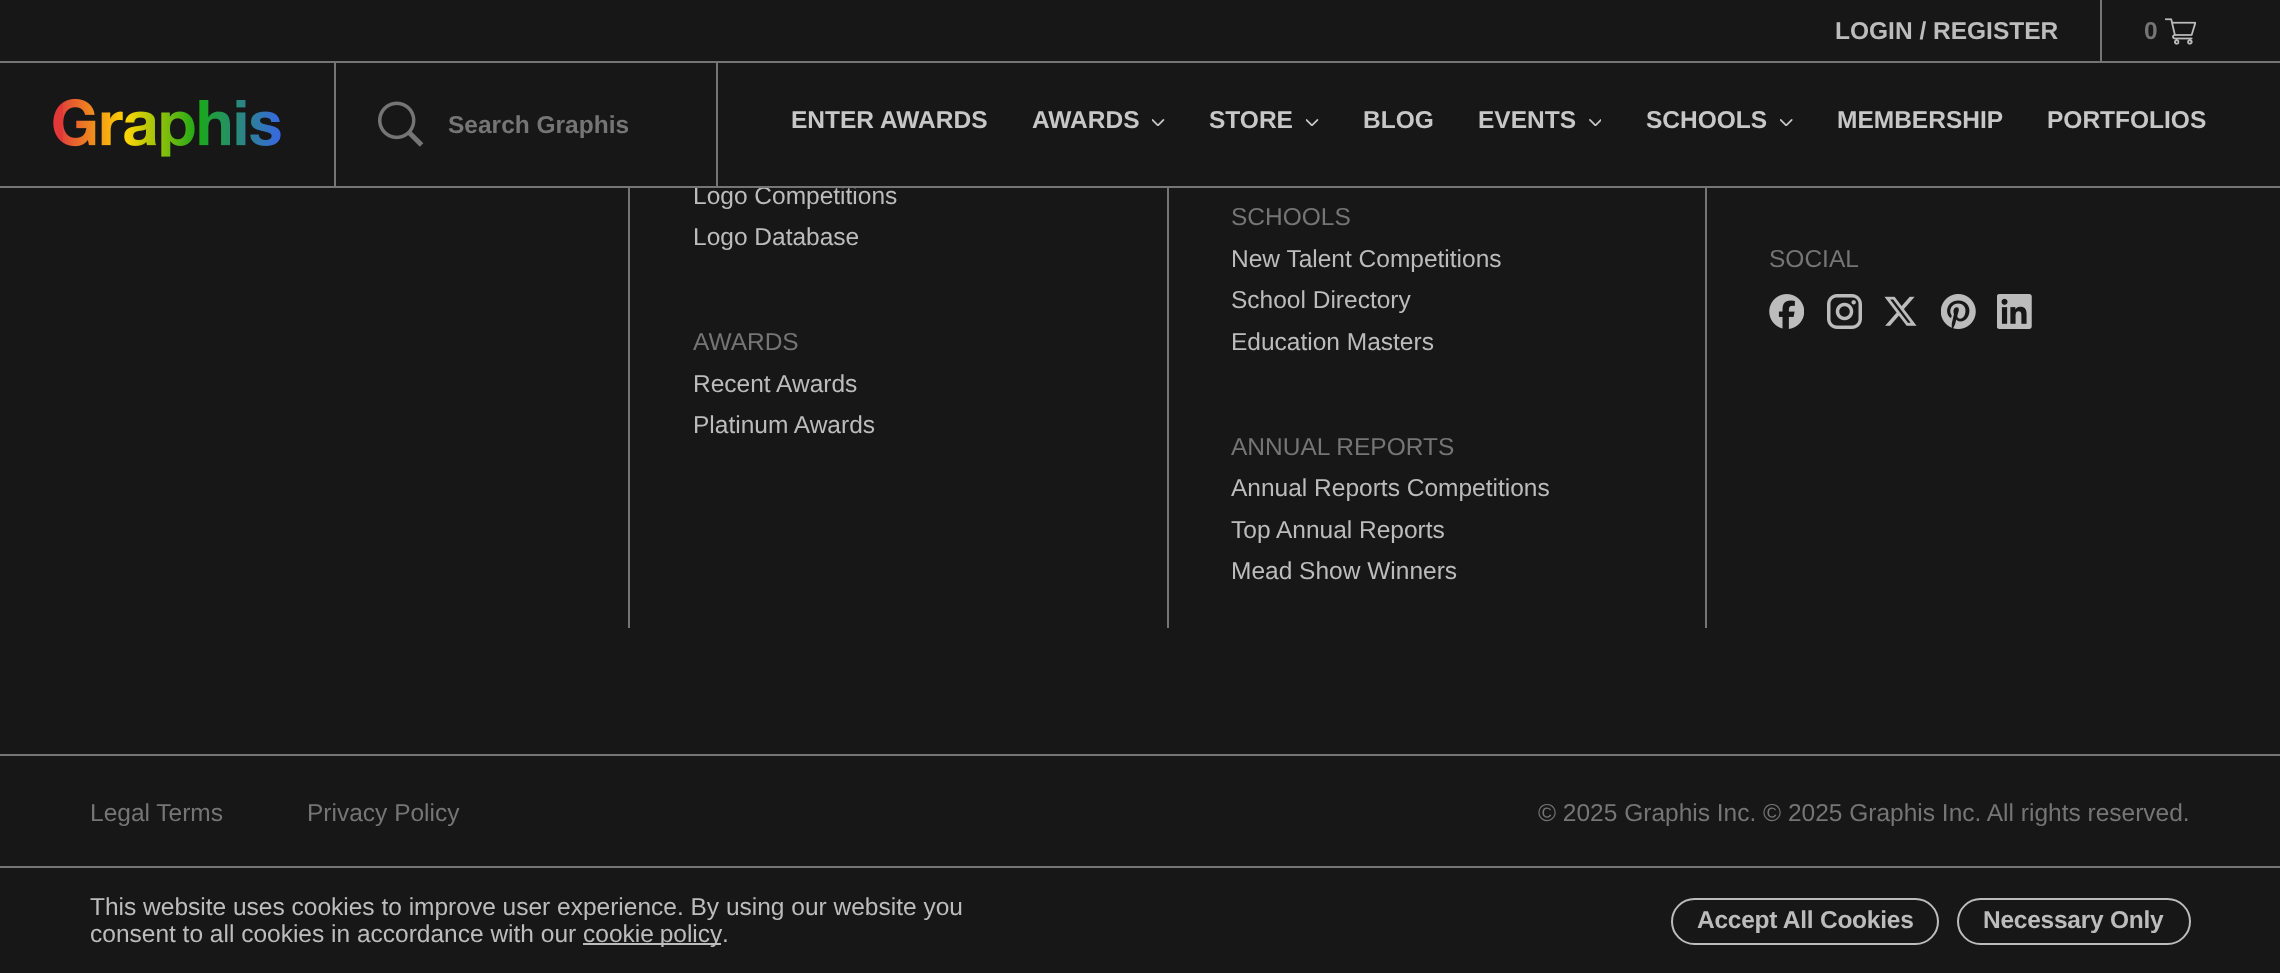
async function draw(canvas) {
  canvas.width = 2280
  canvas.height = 973
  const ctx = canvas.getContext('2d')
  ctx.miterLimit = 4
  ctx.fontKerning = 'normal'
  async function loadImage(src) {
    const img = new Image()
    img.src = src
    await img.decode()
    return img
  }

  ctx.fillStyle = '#171717'
  ctx.fillRect(0, 0, 2280, 973)
  ctx.font = 'bold 24.5px Liberation Sans'
  ctx.fillStyle = '#bcbcbc'
  ctx.fillText('LOGIN / REGISTER', 1835, 39)
  ctx.fillStyle = '#757575'
  ctx.fillRect(2100, 0, 2, 61)
  ctx.fillText('0', 2144, 39)
  ctx.drawImage(await loadImage('image0.png'), 2165, 18, 31, 27)
  ctx.fillRect(0, 61, 2280, 2)
  ctx.font = '24.5px Liberation Sans'
  ctx.fillStyle = '#bcbcbc'
  ctx.fillText('Logo Competitions', 693, 204)
  ctx.fillStyle = '#757575'
  ctx.fillRect(0, 186, 2280, 2)
  ctx.drawImage(await loadImage('image1.png'), 53, 98, 228, 59)
  ctx.fillRect(334, 63, 2, 123)
  ctx.drawImage(await loadImage('image2.png'), 378, 101, 46, 46)
  ctx.font = 'bold 24.5px Liberation Sans'
  ctx.fillText('Search Graphis', 448, 133)
  ctx.fillRect(716, 63, 2, 123)
  ctx.fillStyle = '#c7c7c7'
  ctx.fillText('ENTER AWARDS', 791, 128)
  ctx.fillText('AWARDS', 1032, 128)
  ctx.drawImage(await loadImage('image3.png'), 1152, 119, 13, 7)
  ctx.fillText('STORE', 1209, 128)
  ctx.drawImage(await loadImage('image3.png'), 1306, 119, 13, 7)
  ctx.fillText('BLOG', 1363, 128)
  ctx.fillText('EVENTS', 1478, 128)
  ctx.drawImage(await loadImage('image4.png'), 1589, 119, 12, 7)
  ctx.fillText('SCHOOLS', 1646, 128)
  ctx.drawImage(await loadImage('image5.png'), 1780, 119, 13, 7)
  ctx.fillText('MEMBERSHIP', 1837, 128)
  ctx.fillText('PORTFOLIOS', 2047, 128)
  ctx.fillStyle = '#757575'
  ctx.fillRect(0, 754, 2280, 2)
  ctx.fillRect(628, 188, 2, 440)
  ctx.font = '24.5px Liberation Sans'
  ctx.fillStyle = '#bcbcbc'
  ctx.fillText('Logo Database', 693, 245)
  ctx.fillStyle = '#757575'
  ctx.fillText('AWARDS', 693, 350)
  ctx.fillStyle = '#bcbcbc'
  ctx.fillText('Recent Awards', 693, 392)
  ctx.fillText('Platinum Awards', 693, 433)
  ctx.fillStyle = '#757575'
  ctx.fillRect(1167, 188, 2, 440)
  ctx.fillText('SCHOOLS', 1231, 225)
  ctx.fillStyle = '#bcbcbc'
  ctx.fillText('New Talent Competitions', 1231, 267)
  ctx.fillText('School Directory', 1231, 308)
  ctx.fillText('Education Masters', 1231, 350)
  ctx.fillStyle = '#757575'
  ctx.fillText('ANNUAL REPORTS', 1231, 455)
  ctx.fillStyle = '#bcbcbc'
  ctx.fillText('Annual Reports Competitions', 1231, 496)
  ctx.fillText('Top Annual Reports', 1231, 538)
  ctx.fillText('Mead Show Winners', 1231, 579)
  ctx.fillStyle = '#757575'
  ctx.fillRect(1705, 188, 2, 440)
  ctx.fillText('SOCIAL', 1769, 267)
  ctx.drawImage(await loadImage('image6.png'), 1769, 294, 35, 35)
  ctx.drawImage(await loadImage('image7.png'), 1827, 294, 35, 35)
  ctx.drawImage(await loadImage('image8.png'), 1884, 296, 33, 30)
  ctx.drawImage(await loadImage('image9.png'), 1941, 294, 35, 35)
  ctx.drawImage(await loadImage('image10.png'), 1997, 294, 35, 35)
  ctx.fillText('Legal Terms', 90, 821)
  ctx.fillText('Privacy Policy', 307, 821)
  ctx.fillText('© 2025 Graphis Inc. © 2025 Graphis Inc. All rights reserved.', 1538, 821)
  ctx.fillRect(0, 866, 2280, 2)
  ctx.fillStyle = '#bcbcbc'
  ctx.fillText('This website uses cookies to improve user experience. By using our website you', 90, 915)
  ctx.fillText('consent to all cookies in accordance with our', 90, 942)
  ctx.fillRect(583, 943, 138, 2)
  ctx.wordSpacing = '-1px'
  ctx.fillText('cookie policy', 583, 942)
  ctx.wordSpacing = '0px'
  ctx.fillText('.', 722, 942)
  ctx.beginPath()
  ctx.roundRect(1672, 899, 266, 45, 22.5)
  ctx.strokeStyle = '#bcbcbc'
  ctx.lineWidth = 2
  ctx.stroke()
  ctx.letterSpacing = '-0.25px'
  ctx.font = 'bold 24.5px Liberation Sans'
  ctx.fillText('Accept All Cookies', 1697, 928)
  ctx.beginPath()
  ctx.roundRect(1958, 899, 232, 45, 22.5)
  ctx.stroke()
  ctx.fillText('Necessary Only', 1983, 928)
}

draw(document.querySelector('canvas'))
